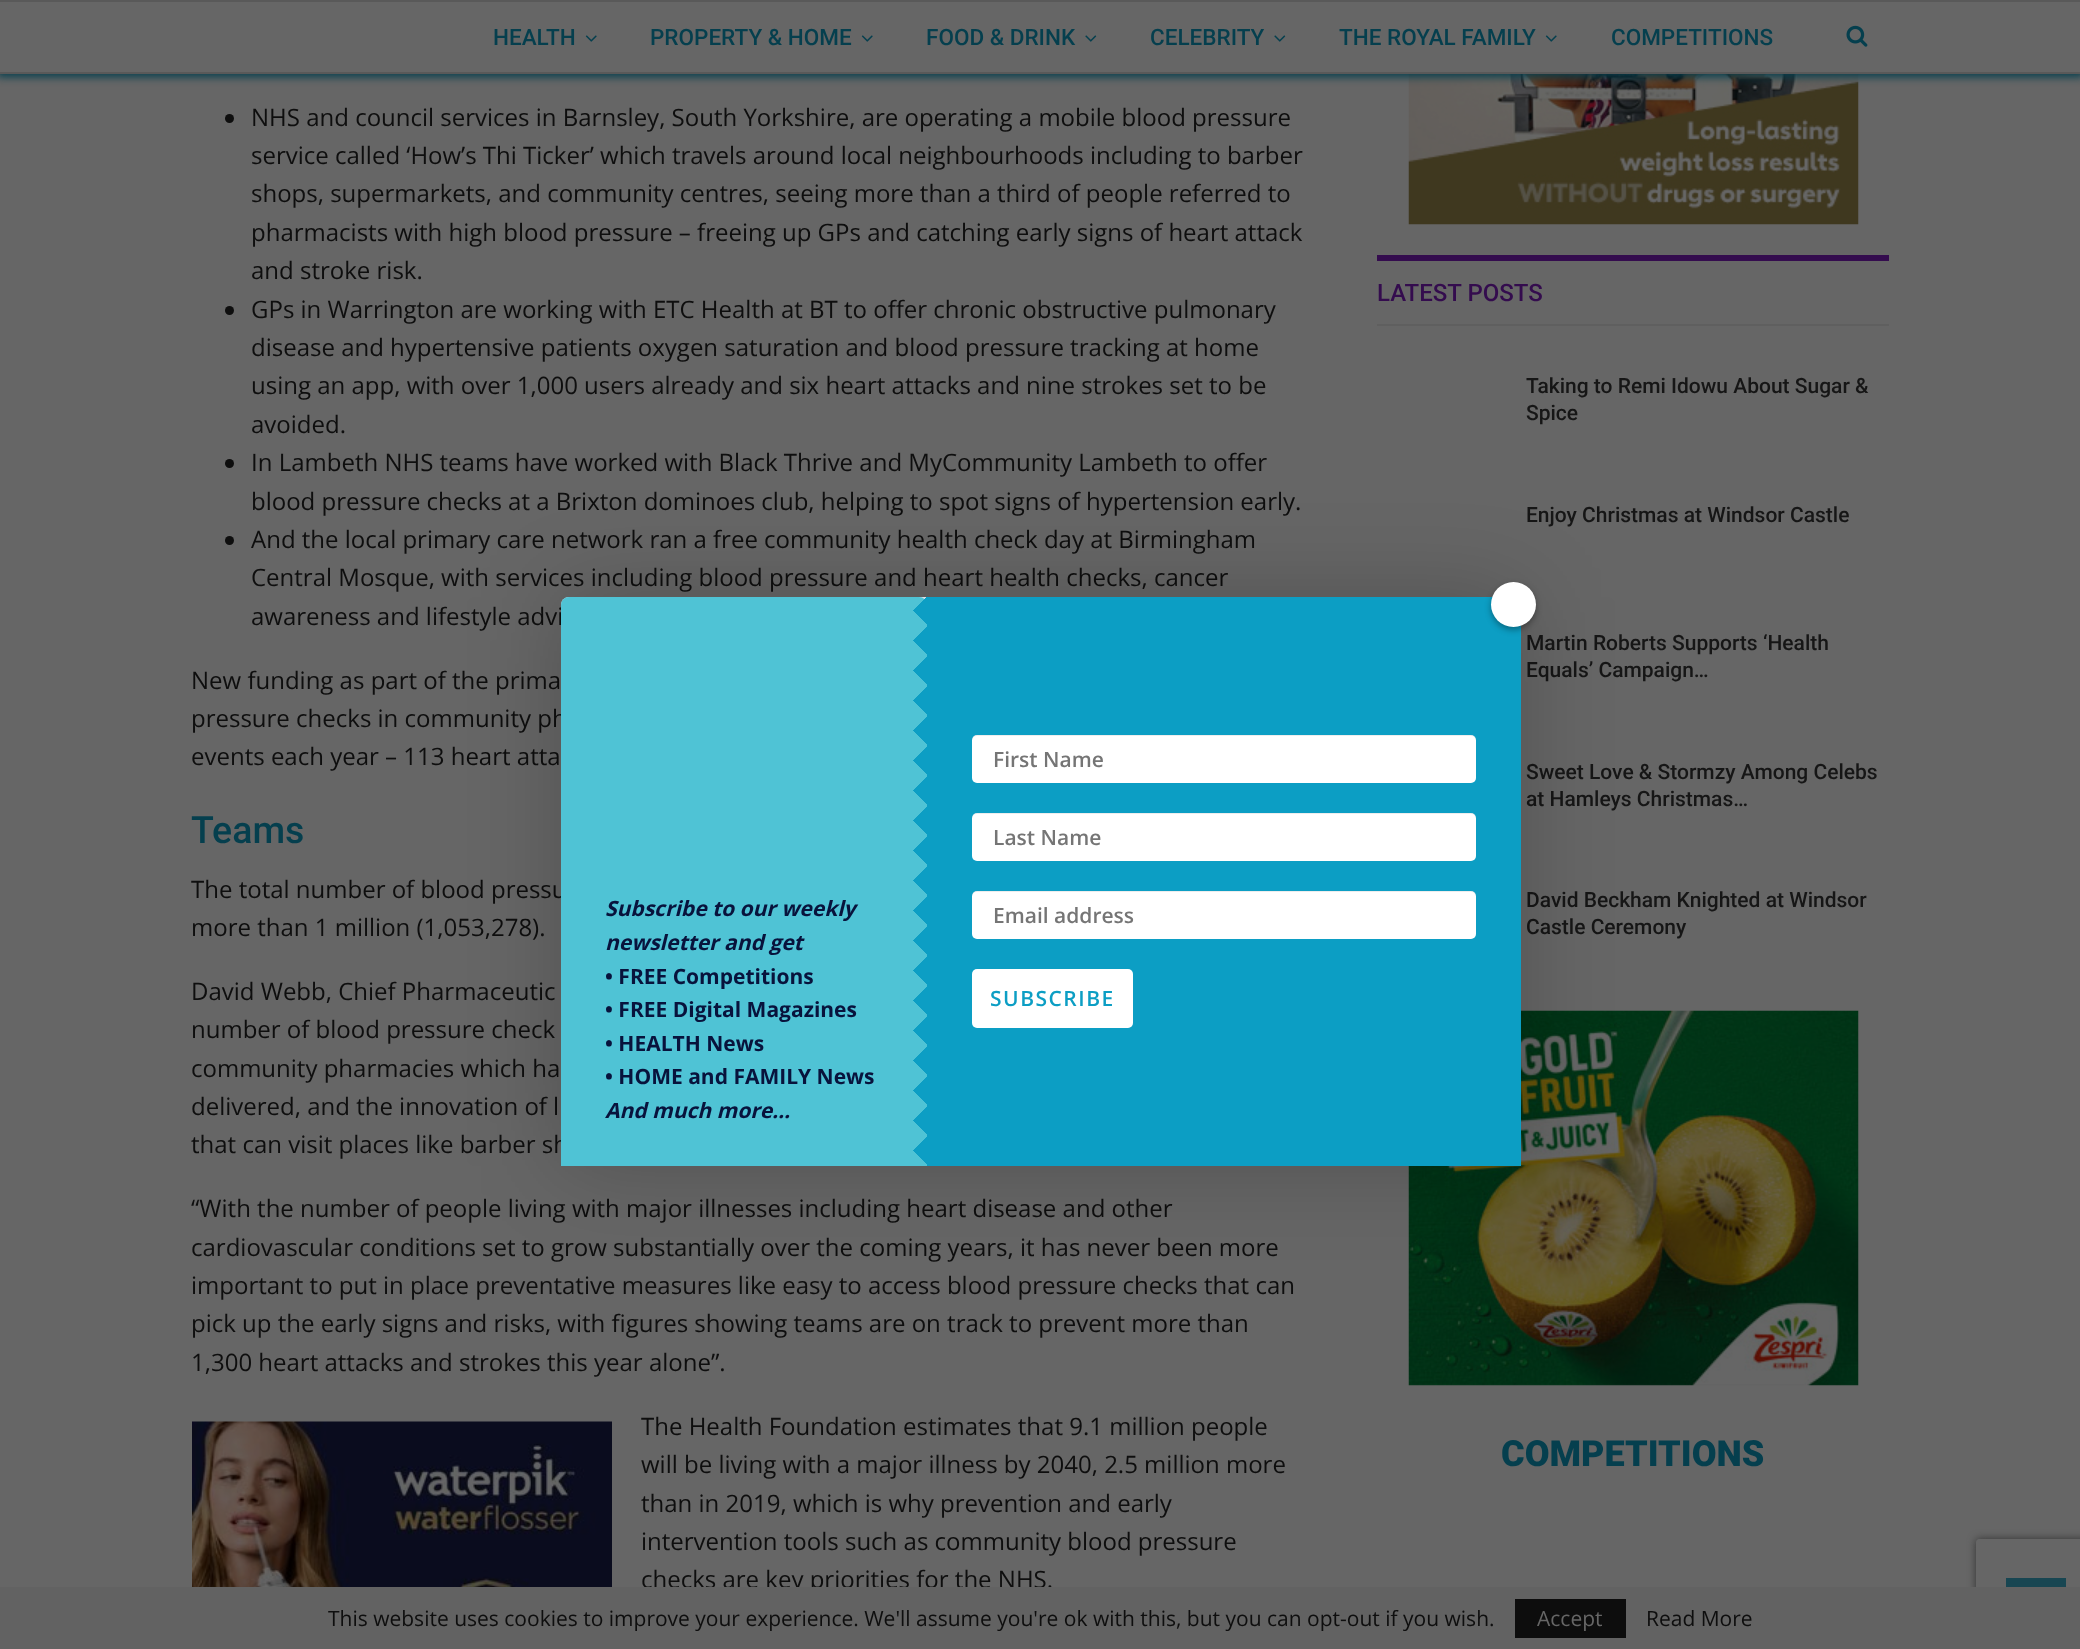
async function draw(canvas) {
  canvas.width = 2080
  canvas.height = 1649
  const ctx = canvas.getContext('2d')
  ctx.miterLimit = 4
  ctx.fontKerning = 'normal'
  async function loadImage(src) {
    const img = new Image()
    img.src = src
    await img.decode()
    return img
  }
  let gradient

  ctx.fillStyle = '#666'
  ctx.fillRect(0, 0, 2080, 1649)
  ctx.drawImage(await loadImage('image4.png'), 1408, 74, 451, 151)
  ctx.fillStyle = '#053f4e'
  ctx.filter = 'blur(4px)'
  ctx.beginPath()
  ctx.rect(-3, -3, 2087, 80)
  ctx.fill()
  ctx.filter = 'none'
  ctx.fillStyle = '#666'
  ctx.fillRect(0, 2, 2080, 70)
  ctx.fillStyle = '#595959'
  ctx.fillRect(0, 0, 2080, 2)
  ctx.fillRect(0, 72, 2080, 2)
  ctx.font = '500 22.5px Roboto'
  ctx.fillStyle = '#053f4e'
  ctx.fillText('HEALTH', 493, 45)
  ctx.drawImage(await loadImage('image0.png'), 585, 35, 12, 7)
  ctx.fillText('PROPERTY & HOME', 650, 45)
  ctx.drawImage(await loadImage('image0.png'), 861, 35, 12, 7)
  ctx.fillText('FOOD & DRINK', 926, 45)
  ctx.drawImage(await loadImage('image1.png'), 1085, 35, 12, 7)
  ctx.fillText('CELEBRITY', 1150, 45)
  ctx.drawImage(await loadImage('image1.png'), 1274, 35, 12, 7)
  ctx.fillText('THE ROYAL FAMILY', 1339, 45)
  ctx.drawImage(await loadImage('image0.png'), 1545, 35, 12, 7)
  ctx.fillText('COMPETITIONS', 1611, 45)
  ctx.drawImage(await loadImage('image2.png'), 1846, 25, 22, 22)
  ctx.fillStyle = '#0e0e0e'
  ctx.beginPath()
  ctx.arc(229.5, 118.5, 4.5, 0, 2 * Math.PI)
  ctx.fill()
  ctx.font = '24px Open Sans'
  ctx.fillText('NHS and council services in Barnsley, South Yorkshire, are operating a mobile blood pressure', 251, 126)
  ctx.fillText('service called ‘How’s Thi Ticker’ which travels around local neighbourhoods including to barber', 251, 164)
  ctx.fillText('shops, supermarkets, and community centres, seeing more than a third of people referred to', 251, 202)
  ctx.fillText('pharmacists with high blood pressure – freeing up GPs and catching early signs of heart attack', 251, 241)
  ctx.fillText('and stroke risk.', 251, 279)
  ctx.beginPath()
  ctx.arc(229.5, 310.5, 4.5, 0, 2 * Math.PI)
  ctx.fill()
  ctx.fillText('GPs in Warrington are working with ETC Health at BT to offer chronic obstructive pulmonary', 251, 318)
  ctx.fillText('disease and hypertensive patients oxygen saturation and blood pressure tracking at home', 251, 356)
  ctx.fillText('using an app, with over 1,000 users already and six heart attacks and nine strokes set to be', 251, 394)
  ctx.fillText('avoided.', 251, 433)
  ctx.beginPath()
  ctx.arc(229.5, 463.5, 4.5, 0, 2 * Math.PI)
  ctx.fill()
  ctx.fillText('In Lambeth NHS teams have worked with Black Thrive and MyCommunity Lambeth to offer', 251, 471)
  ctx.fillText('blood pressure checks at a Brixton dominoes club, helping to spot signs of hypertension early.', 251, 510)
  ctx.beginPath()
  ctx.arc(229.5, 540.5, 4.5, 0, 2 * Math.PI)
  ctx.fill()
  ctx.fillText('And the local primary care network ran a free community health check day at Birmingham', 251, 548)
  ctx.fillText('Central Mosque, with services including blood pressure and heart health checks, cancer', 251, 586)
  ctx.fillText('awareness and lifestyle advi', 251, 625)
  ctx.fillText('New funding as part of the prima', 191, 689)
  ctx.fillText('pressure checks in community ph', 191, 727)
  ctx.fillText('events each year – 113 heart atta', 191, 765)
  ctx.font = '500 37.5px Roboto'
  ctx.fillStyle = '#053f4e'
  ctx.fillText('Teams', 191, 843)
  ctx.font = '24px Open Sans'
  ctx.fillStyle = '#0e0e0e'
  ctx.fillText('The total number of blood pressu', 191, 898)
  ctx.fillText('more than 1 million (1,053,278).', 191, 936)
  ctx.fillText('David Webb, Chief Pharmaceutic', 191, 1000)
  ctx.fillText('number of blood pressure check', 191, 1038)
  ctx.fillText('community pharmacies which ha', 191, 1077)
  ctx.fillText('delivered, and the innovation of l', 191, 1115)
  ctx.fillText('that can visit places like barber sh', 191, 1153)
  ctx.fillText('“With the number of people living with major illnesses including heart disease and other', 191, 1217)
  ctx.fillText('cardiovascular conditions set to grow substantially over the coming years, it has never been more', 191, 1256)
  ctx.fillText('important to put in place preventative measures like easy to access blood pressure checks that can', 191, 1294)
  ctx.fillText('pick up the early signs and risks, with figures showing teams are on track to prevent more than', 191, 1332)
  ctx.fillText('1,300 heart attacks and strokes this year alone”.', 191, 1371)
  ctx.drawImage(await loadImage('image3.png'), 192, 1421, 420, 166)
  ctx.fillText('The Health Foundation estimates that 9.1 million people', 641, 1435)
  ctx.fillText('will be living with a major illness by 2040, 2.5 million more', 641, 1473)
  ctx.fillText('than in 2019, which is why prevention and early', 641, 1512)
  ctx.fillText('intervention tools such as community blood pressure', 641, 1550)
  ctx.fillText('checks are key priorities for the NHS.', 641, 1588)
  ctx.fillStyle = '#340c4e'
  ctx.fillRect(1377, 255, 512, 6)
  ctx.font = '500 24px Roboto'
  ctx.fillText('LATEST POSTS', 1377, 301)
  ctx.fillStyle = '#5f5f5f'
  ctx.fillRect(1377, 324, 512, 2)
  ctx.font = '500 21px Roboto'
  ctx.fillStyle = '#161616'
  ctx.fillText('Taking to Remi Idowu About Sugar &', 1526, 393)
  ctx.fillText('Spice', 1526, 420)
  ctx.fillText('Enjoy Christmas at Windsor Castle', 1526, 522)
  ctx.fillText('Martin Roberts Supports ‘Health', 1526, 650)
  ctx.fillText('Equals’ Campaign…', 1526, 677)
  ctx.fillText('Sweet Love & Stormzy Among Celebs', 1526, 779)
  ctx.fillText('at Hamleys Christmas…', 1526, 806)
  ctx.fillText('David Beckham Knighted at Windsor', 1526, 907)
  ctx.fillText('Castle Ceremony', 1526, 934)
  ctx.drawImage(await loadImage('image5.png'), 1408, 1010, 451, 376)
  ctx.font = '900 36px Roboto'
  ctx.fillStyle = '#053f4e'
  ctx.fillText('COMPETITIONS', 1501, 1466)
  ctx.save()
  ctx.beginPath()
  ctx.moveTo(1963, 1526)
  ctx.lineTo(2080, 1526)
  ctx.lineTo(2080, 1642)
  ctx.lineTo(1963, 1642)
  ctx.closePath()
  ctx.moveTo(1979, 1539)
  ctx.lineTo(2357, 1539)
  ctx.bezierCurveTo(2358.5, 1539, 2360, 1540.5, 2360, 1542)
  ctx.lineTo(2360, 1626)
  ctx.bezierCurveTo(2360, 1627.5, 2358.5, 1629, 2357, 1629)
  ctx.lineTo(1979, 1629)
  ctx.bezierCurveTo(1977.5, 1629, 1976, 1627.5, 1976, 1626)
  ctx.lineTo(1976, 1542)
  ctx.bezierCurveTo(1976, 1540.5, 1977.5, 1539, 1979, 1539)
  ctx.closePath()
  ctx.clip('evenodd')
  ctx.fillStyle = '#333'
  ctx.filter = 'blur(4px)'
  ctx.beginPath()
  ctx.roundRect(1976, 1539, 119, 90, 3)
  ctx.fill()
  ctx.filter = 'none'
  ctx.restore()
  ctx.fillStyle = '#00000033'
  ctx.filter = 'blur(45px)'
  ctx.beginPath()
  ctx.roundRect(561, 597, 960, 569, 8)
  ctx.fill()
  ctx.filter = 'none'
  ctx.fillStyle = '#dadfe4'
  ctx.beginPath()
  ctx.roundRect(561, 597, 960, 569, 8)
  ctx.fill()
  ctx.fillStyle = '#0c9ec4'
  ctx.fillRect(927, 597, 594, 569)
  ctx.fillStyle = '#00000057'
  ctx.filter = 'blur(3px)'
  ctx.beginPath()
  ctx.roundRect(1491, 585, 45, 45, 22.5)
  ctx.fill()
  ctx.filter = 'none'
  ctx.fillStyle = '#fff'
  ctx.beginPath()
  ctx.arc(1513.5, 604.5, 22.5, 0, 2 * Math.PI)
  ctx.fill()
  ctx.fillStyle = '#4fc3d5'
  ctx.beginPath()
  ctx.roundRect(561, 597, 366, 569, [8, 8, 0, 0])
  ctx.fill()
  ctx.font = 'italic bold 21px Open Sans'
  ctx.fillStyle = '#08133c'
  ctx.fillText('Subscribe to our weekly', 605, 916)
  ctx.fillText('newsletter and get', 605, 950)
  ctx.font = 'bold 21px Open Sans'
  ctx.fillText('• FREE Competitions', 605, 984)
  ctx.fillText('• FREE Digital Magazines', 605, 1017)
  ctx.fillText('• HEALTH News', 605, 1051)
  ctx.fillText('• HOME and FAMILY News', 605, 1084)
  ctx.font = 'italic bold 21px Open Sans'
  ctx.fillText('And much more…', 605, 1118)
  gradient = ctx.createLinearGradient(966, 1143, 921, 1188)
  gradient.addColorStop(0.33, '#0c9ec400')
  gradient.addColorStop(0.33, '#0c9ec4')
  gradient.addColorStop(0.67, '#0c9ec4')
  gradient.addColorStop(0.67, '#0c9ec400')
  ctx.fillStyle = gradient
  ctx.fillRect(913, 1150, 14, 14)
  gradient = ctx.createLinearGradient(966, 1113, 921, 1158)
  gradient.addColorStop(0.33, '#0c9ec400')
  gradient.addColorStop(0.33, '#0c9ec4')
  gradient.addColorStop(0.67, '#0c9ec4')
  gradient.addColorStop(0.67, '#0c9ec400')
  ctx.fillStyle = gradient
  ctx.fillRect(913, 1120, 14, 14)
  gradient = ctx.createLinearGradient(966, 1083, 921, 1128)
  gradient.addColorStop(0.33, '#0c9ec400')
  gradient.addColorStop(0.33, '#0c9ec4')
  gradient.addColorStop(0.67, '#0c9ec4')
  gradient.addColorStop(0.67, '#0c9ec400')
  ctx.fillStyle = gradient
  ctx.fillRect(913, 1090, 14, 14)
  gradient = ctx.createLinearGradient(966, 1053, 921, 1098)
  gradient.addColorStop(0.33, '#0c9ec400')
  gradient.addColorStop(0.33, '#0c9ec4')
  gradient.addColorStop(0.67, '#0c9ec4')
  gradient.addColorStop(0.67, '#0c9ec400')
  ctx.fillStyle = gradient
  ctx.fillRect(913, 1060, 14, 14)
  gradient = ctx.createLinearGradient(966, 1023, 921, 1068)
  gradient.addColorStop(0.33, '#0c9ec400')
  gradient.addColorStop(0.33, '#0c9ec4')
  gradient.addColorStop(0.67, '#0c9ec4')
  gradient.addColorStop(0.67, '#0c9ec400')
  ctx.fillStyle = gradient
  ctx.fillRect(913, 1030, 14, 14)
  gradient = ctx.createLinearGradient(966, 993, 921, 1038)
  gradient.addColorStop(0.33, '#0c9ec400')
  gradient.addColorStop(0.33, '#0c9ec4')
  gradient.addColorStop(0.67, '#0c9ec4')
  gradient.addColorStop(0.67, '#0c9ec400')
  ctx.fillStyle = gradient
  ctx.fillRect(913, 1000, 14, 14)
  gradient = ctx.createLinearGradient(966, 963, 921, 1008)
  gradient.addColorStop(0.33, '#0c9ec400')
  gradient.addColorStop(0.33, '#0c9ec4')
  gradient.addColorStop(0.67, '#0c9ec4')
  gradient.addColorStop(0.67, '#0c9ec400')
  ctx.fillStyle = gradient
  ctx.fillRect(913, 970, 14, 14)
  gradient = ctx.createLinearGradient(966, 933, 921, 978)
  gradient.addColorStop(0.33, '#0c9ec400')
  gradient.addColorStop(0.33, '#0c9ec4')
  gradient.addColorStop(0.67, '#0c9ec4')
  gradient.addColorStop(0.67, '#0c9ec400')
  ctx.fillStyle = gradient
  ctx.fillRect(913, 940, 14, 14)
  gradient = ctx.createLinearGradient(966, 903, 921, 948)
  gradient.addColorStop(0.33, '#0c9ec400')
  gradient.addColorStop(0.33, '#0c9ec4')
  gradient.addColorStop(0.67, '#0c9ec4')
  gradient.addColorStop(0.67, '#0c9ec400')
  ctx.fillStyle = gradient
  ctx.fillRect(913, 910, 14, 14)
  gradient = ctx.createLinearGradient(966, 873, 921, 918)
  gradient.addColorStop(0.33, '#0c9ec400')
  gradient.addColorStop(0.33, '#0c9ec4')
  gradient.addColorStop(0.67, '#0c9ec4')
  gradient.addColorStop(0.67, '#0c9ec400')
  ctx.fillStyle = gradient
  ctx.fillRect(913, 880, 14, 14)
  gradient = ctx.createLinearGradient(966, 843, 921, 888)
  gradient.addColorStop(0.33, '#0c9ec400')
  gradient.addColorStop(0.33, '#0c9ec4')
  gradient.addColorStop(0.67, '#0c9ec4')
  gradient.addColorStop(0.67, '#0c9ec400')
  ctx.fillStyle = gradient
  ctx.fillRect(913, 850, 14, 14)
  gradient = ctx.createLinearGradient(966, 813, 921, 858)
  gradient.addColorStop(0.33, '#0c9ec400')
  gradient.addColorStop(0.33, '#0c9ec4')
  gradient.addColorStop(0.67, '#0c9ec4')
  gradient.addColorStop(0.67, '#0c9ec400')
  ctx.fillStyle = gradient
  ctx.fillRect(913, 820, 14, 14)
  gradient = ctx.createLinearGradient(966, 783, 921, 828)
  gradient.addColorStop(0.33, '#0c9ec400')
  gradient.addColorStop(0.33, '#0c9ec4')
  gradient.addColorStop(0.67, '#0c9ec4')
  gradient.addColorStop(0.67, '#0c9ec400')
  ctx.fillStyle = gradient
  ctx.fillRect(913, 790, 14, 14)
  gradient = ctx.createLinearGradient(966, 753, 921, 798)
  gradient.addColorStop(0.33, '#0c9ec400')
  gradient.addColorStop(0.33, '#0c9ec4')
  gradient.addColorStop(0.67, '#0c9ec4')
  gradient.addColorStop(0.67, '#0c9ec400')
  ctx.fillStyle = gradient
  ctx.fillRect(913, 760, 14, 14)
  gradient = ctx.createLinearGradient(966, 723, 921, 768)
  gradient.addColorStop(0.33, '#0c9ec400')
  gradient.addColorStop(0.33, '#0c9ec4')
  gradient.addColorStop(0.67, '#0c9ec4')
  gradient.addColorStop(0.67, '#0c9ec400')
  ctx.fillStyle = gradient
  ctx.fillRect(913, 730, 14, 14)
  gradient = ctx.createLinearGradient(966, 693, 921, 738)
  gradient.addColorStop(0.33, '#0c9ec400')
  gradient.addColorStop(0.33, '#0c9ec4')
  gradient.addColorStop(0.67, '#0c9ec4')
  gradient.addColorStop(0.67, '#0c9ec400')
  ctx.fillStyle = gradient
  ctx.fillRect(913, 700, 14, 14)
  gradient = ctx.createLinearGradient(966, 663, 921, 708)
  gradient.addColorStop(0.33, '#0c9ec400')
  gradient.addColorStop(0.33, '#0c9ec4')
  gradient.addColorStop(0.67, '#0c9ec4')
  gradient.addColorStop(0.67, '#0c9ec400')
  ctx.fillStyle = gradient
  ctx.fillRect(913, 670, 14, 14)
  gradient = ctx.createLinearGradient(966, 633, 921, 678)
  gradient.addColorStop(0.33, '#0c9ec400')
  gradient.addColorStop(0.33, '#0c9ec4')
  gradient.addColorStop(0.67, '#0c9ec4')
  gradient.addColorStop(0.67, '#0c9ec400')
  ctx.fillStyle = gradient
  ctx.fillRect(913, 640, 14, 14)
  gradient = ctx.createLinearGradient(966, 603, 921, 648)
  gradient.addColorStop(0.33, '#0c9ec400')
  gradient.addColorStop(0.33, '#0c9ec4')
  gradient.addColorStop(0.67, '#0c9ec4')
  gradient.addColorStop(0.67, '#0c9ec400')
  ctx.fillStyle = gradient
  ctx.fillRect(913, 610, 14, 14)
  gradient = ctx.createLinearGradient(966, 1158, 921, 1113)
  gradient.addColorStop(0.33, '#0c9ec400')
  gradient.addColorStop(0.33, '#0c9ec4')
  gradient.addColorStop(0.67, '#0c9ec4')
  gradient.addColorStop(0.67, '#0c9ec400')
  ctx.fillStyle = gradient
  ctx.fillRect(914, 1137, 13, 13)
  gradient = ctx.createLinearGradient(966, 1128, 921, 1083)
  gradient.addColorStop(0.33, '#0c9ec400')
  gradient.addColorStop(0.33, '#0c9ec4')
  gradient.addColorStop(0.67, '#0c9ec4')
  gradient.addColorStop(0.67, '#0c9ec400')
  ctx.fillStyle = gradient
  ctx.fillRect(914, 1107, 13, 13)
  gradient = ctx.createLinearGradient(966, 1098, 921, 1053)
  gradient.addColorStop(0.33, '#0c9ec400')
  gradient.addColorStop(0.33, '#0c9ec4')
  gradient.addColorStop(0.67, '#0c9ec4')
  gradient.addColorStop(0.67, '#0c9ec400')
  ctx.fillStyle = gradient
  ctx.fillRect(914, 1077, 13, 13)
  gradient = ctx.createLinearGradient(966, 1068, 921, 1023)
  gradient.addColorStop(0.33, '#0c9ec400')
  gradient.addColorStop(0.33, '#0c9ec4')
  gradient.addColorStop(0.67, '#0c9ec4')
  gradient.addColorStop(0.67, '#0c9ec400')
  ctx.fillStyle = gradient
  ctx.fillRect(914, 1047, 13, 13)
  gradient = ctx.createLinearGradient(966, 1038, 921, 993)
  gradient.addColorStop(0.33, '#0c9ec400')
  gradient.addColorStop(0.33, '#0c9ec4')
  gradient.addColorStop(0.67, '#0c9ec4')
  gradient.addColorStop(0.67, '#0c9ec400')
  ctx.fillStyle = gradient
  ctx.fillRect(914, 1017, 13, 13)
  gradient = ctx.createLinearGradient(966, 1008, 921, 963)
  gradient.addColorStop(0.33, '#0c9ec400')
  gradient.addColorStop(0.33, '#0c9ec4')
  gradient.addColorStop(0.67, '#0c9ec4')
  gradient.addColorStop(0.67, '#0c9ec400')
  ctx.fillStyle = gradient
  ctx.fillRect(914, 987, 13, 13)
  gradient = ctx.createLinearGradient(966, 978, 921, 933)
  gradient.addColorStop(0.33, '#0c9ec400')
  gradient.addColorStop(0.33, '#0c9ec4')
  gradient.addColorStop(0.67, '#0c9ec4')
  gradient.addColorStop(0.67, '#0c9ec400')
  ctx.fillStyle = gradient
  ctx.fillRect(914, 957, 13, 13)
  gradient = ctx.createLinearGradient(966, 948, 921, 903)
  gradient.addColorStop(0.33, '#0c9ec400')
  gradient.addColorStop(0.33, '#0c9ec4')
  gradient.addColorStop(0.67, '#0c9ec4')
  gradient.addColorStop(0.67, '#0c9ec400')
  ctx.fillStyle = gradient
  ctx.fillRect(914, 927, 13, 13)
  gradient = ctx.createLinearGradient(966, 918, 921, 873)
  gradient.addColorStop(0.33, '#0c9ec400')
  gradient.addColorStop(0.33, '#0c9ec4')
  gradient.addColorStop(0.67, '#0c9ec4')
  gradient.addColorStop(0.67, '#0c9ec400')
  ctx.fillStyle = gradient
  ctx.fillRect(914, 897, 13, 13)
  gradient = ctx.createLinearGradient(966, 888, 921, 843)
  gradient.addColorStop(0.33, '#0c9ec400')
  gradient.addColorStop(0.33, '#0c9ec4')
  gradient.addColorStop(0.67, '#0c9ec4')
  gradient.addColorStop(0.67, '#0c9ec400')
  ctx.fillStyle = gradient
  ctx.fillRect(914, 867, 13, 13)
  gradient = ctx.createLinearGradient(966, 858, 921, 813)
  gradient.addColorStop(0.33, '#0c9ec400')
  gradient.addColorStop(0.33, '#0c9ec4')
  gradient.addColorStop(0.67, '#0c9ec4')
  gradient.addColorStop(0.67, '#0c9ec400')
  ctx.fillStyle = gradient
  ctx.fillRect(914, 837, 13, 13)
  gradient = ctx.createLinearGradient(966, 828, 921, 783)
  gradient.addColorStop(0.33, '#0c9ec400')
  gradient.addColorStop(0.33, '#0c9ec4')
  gradient.addColorStop(0.67, '#0c9ec4')
  gradient.addColorStop(0.67, '#0c9ec400')
  ctx.fillStyle = gradient
  ctx.fillRect(914, 807, 13, 13)
  gradient = ctx.createLinearGradient(966, 798, 921, 753)
  gradient.addColorStop(0.33, '#0c9ec400')
  gradient.addColorStop(0.33, '#0c9ec4')
  gradient.addColorStop(0.67, '#0c9ec4')
  gradient.addColorStop(0.67, '#0c9ec400')
  ctx.fillStyle = gradient
  ctx.fillRect(914, 777, 13, 13)
  gradient = ctx.createLinearGradient(966, 768, 921, 723)
  gradient.addColorStop(0.33, '#0c9ec400')
  gradient.addColorStop(0.33, '#0c9ec4')
  gradient.addColorStop(0.67, '#0c9ec4')
  gradient.addColorStop(0.67, '#0c9ec400')
  ctx.fillStyle = gradient
  ctx.fillRect(914, 747, 13, 13)
  gradient = ctx.createLinearGradient(966, 738, 921, 693)
  gradient.addColorStop(0.33, '#0c9ec400')
  gradient.addColorStop(0.33, '#0c9ec4')
  gradient.addColorStop(0.67, '#0c9ec4')
  gradient.addColorStop(0.67, '#0c9ec400')
  ctx.fillStyle = gradient
  ctx.fillRect(914, 717, 13, 13)
  gradient = ctx.createLinearGradient(966, 708, 921, 663)
  gradient.addColorStop(0.33, '#0c9ec400')
  gradient.addColorStop(0.33, '#0c9ec4')
  gradient.addColorStop(0.67, '#0c9ec4')
  gradient.addColorStop(0.67, '#0c9ec400')
  ctx.fillStyle = gradient
  ctx.fillRect(914, 687, 13, 13)
  gradient = ctx.createLinearGradient(966, 678, 921, 633)
  gradient.addColorStop(0.33, '#0c9ec400')
  gradient.addColorStop(0.33, '#0c9ec4')
  gradient.addColorStop(0.67, '#0c9ec4')
  gradient.addColorStop(0.67, '#0c9ec400')
  ctx.fillStyle = gradient
  ctx.fillRect(914, 657, 13, 13)
  gradient = ctx.createLinearGradient(966, 648, 921, 603)
  gradient.addColorStop(0.33, '#0c9ec400')
  gradient.addColorStop(0.33, '#0c9ec4')
  gradient.addColorStop(0.67, '#0c9ec4')
  gradient.addColorStop(0.67, '#0c9ec400')
  ctx.fillStyle = gradient
  ctx.fillRect(914, 627, 13, 13)
  gradient = ctx.createLinearGradient(966, 618, 921, 573)
  gradient.addColorStop(0.33, '#0c9ec400')
  gradient.addColorStop(0.33, '#0c9ec4')
  gradient.addColorStop(0.67, '#0c9ec4')
  gradient.addColorStop(0.67, '#0c9ec400')
  ctx.fillStyle = gradient
  ctx.fillRect(914, 597, 13, 13)
  ctx.fillStyle = '#fff'
  ctx.beginPath()
  ctx.roundRect(972, 735, 504, 48, 5)
  ctx.fill()
  ctx.fillStyle = '#00000012'
  ctx.beginPath()
  ctx.moveTo(976, 736)
  ctx.lineTo(1472, 736)
  ctx.bezierCurveTo(1474, 736, 1476, 739, 1476, 741)
  ctx.lineTo(1476, 740)
  ctx.bezierCurveTo(1476, 737, 1474, 735, 1471, 735)
  ctx.lineTo(977, 735)
  ctx.bezierCurveTo(974, 735, 972, 737, 972, 740)
  ctx.lineTo(972, 741)
  ctx.bezierCurveTo(972, 739, 974, 736, 976, 736)
  ctx.closePath()
  ctx.fill()
  ctx.font = '600 21px Open Sans'
  ctx.fillStyle = '#757575'
  ctx.fillText('First Name', 993, 767)
  ctx.fillStyle = '#fff'
  ctx.beginPath()
  ctx.roundRect(972, 813, 504, 48, 5)
  ctx.fill()
  ctx.fillStyle = '#00000012'
  ctx.beginPath()
  ctx.moveTo(976, 814)
  ctx.lineTo(1472, 814)
  ctx.bezierCurveTo(1474, 814, 1476, 817, 1476, 819)
  ctx.lineTo(1476, 818)
  ctx.bezierCurveTo(1476, 815, 1474, 813, 1471, 813)
  ctx.lineTo(977, 813)
  ctx.bezierCurveTo(974, 813, 972, 815, 972, 818)
  ctx.lineTo(972, 819)
  ctx.bezierCurveTo(972, 817, 974, 814, 976, 814)
  ctx.closePath()
  ctx.fill()
  ctx.fillStyle = '#757575'
  ctx.fillText('Last Name', 993, 845)
  ctx.fillStyle = '#fff'
  ctx.beginPath()
  ctx.roundRect(972, 891, 504, 48, 5)
  ctx.fill()
  ctx.fillStyle = '#00000012'
  ctx.beginPath()
  ctx.moveTo(976, 892)
  ctx.lineTo(1472, 892)
  ctx.bezierCurveTo(1474, 892, 1476, 895, 1476, 897)
  ctx.lineTo(1476, 896)
  ctx.bezierCurveTo(1476, 893, 1474, 891, 1471, 891)
  ctx.lineTo(977, 891)
  ctx.bezierCurveTo(974, 891, 972, 893, 972, 896)
  ctx.lineTo(972, 897)
  ctx.bezierCurveTo(972, 895, 974, 892, 976, 892)
  ctx.closePath()
  ctx.fill()
  ctx.fillStyle = '#757575'
  ctx.fillText('Email address', 993, 923)
  ctx.fillStyle = '#fff'
  ctx.beginPath()
  ctx.roundRect(972, 969, 161, 59, 5)
  ctx.fill()
  ctx.letterSpacing = '1.5px'
  ctx.fillStyle = '#0c9ec4'
  ctx.fillText('SUBSCRIBE', 990, 1006)
  ctx.fillStyle = '#053f4ecc'
  ctx.fillRect(2006, 1578, 60, 9)
  ctx.fillStyle = '#626262'
  ctx.fillRect(0, 1587, 2080, 62)
  ctx.letterSpacing = '0px'
  ctx.font = '21px Open Sans'
  ctx.fillStyle = '#0e0e0e'
  ctx.fillText('This website uses cookies to improve your experience. We\'ll assume you\'re ok with this, but you can opt-out if you wish.', 328, 1626)
  ctx.fillStyle = '#0d0d0d'
  ctx.fillRect(1515, 1599, 111, 39)
  ctx.fillStyle = '#666'
  ctx.fillText('Accept', 1537, 1626)
  ctx.fillStyle = '#0e0e0e'
  ctx.fillText('Read More', 1646, 1626)
}

draw(document.querySelector('canvas'))
